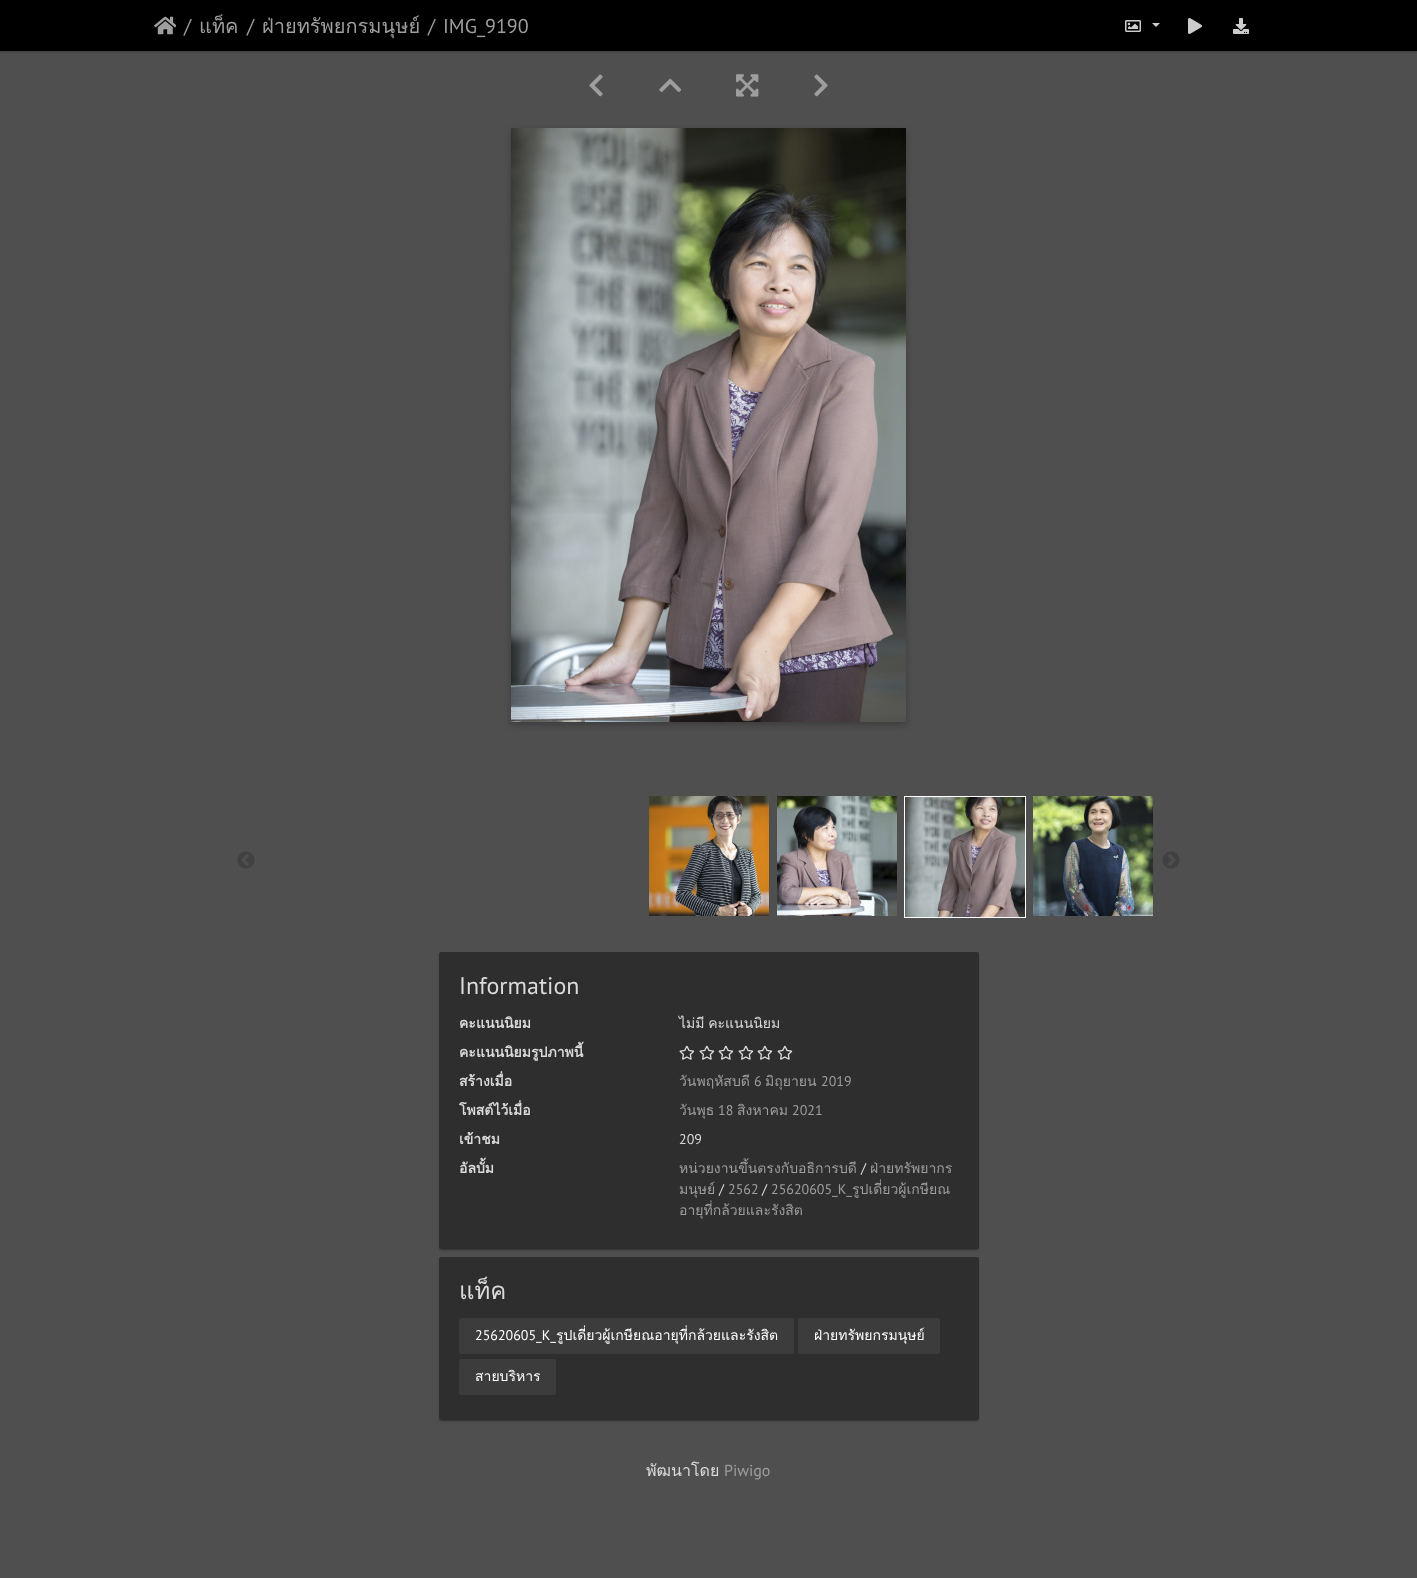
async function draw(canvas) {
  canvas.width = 1417
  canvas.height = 1578
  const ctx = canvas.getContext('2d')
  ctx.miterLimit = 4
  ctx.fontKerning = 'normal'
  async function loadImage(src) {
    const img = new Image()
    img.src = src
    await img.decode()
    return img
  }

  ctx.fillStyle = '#4f4f4f'
  ctx.fillRect(0, 0, 1417, 1578)
  ctx.fillStyle = '#0000003d'
  ctx.filter = 'blur(1px)'
  ctx.beginPath()
  ctx.rect(0, 1, 1417, 51)
  ctx.fill()
  ctx.filter = 'none'
  ctx.fillStyle = '#000'
  ctx.fillRect(0, 0, 1417, 51)
  ctx.drawImage(await loadImage('image0.png'), 154, 16, 22, 19)
  ctx.font = '20px PT Sans'
  ctx.fillStyle = '#9e9e9e'
  ctx.fillText('/', 184, 33)
  ctx.font = '20px Loma'
  ctx.fillText('แท็ค', 199, 33)
  ctx.font = '20px PT Sans'
  ctx.fillText('/', 247, 33)
  ctx.font = '20px Loma'
  ctx.fillText('ฝ่ายทรัพยกรมนุษย์', 262, 33)
  ctx.font = '20px PT Sans'
  ctx.fillText('/', 428, 33)
  ctx.fillText('IMG_9190', 443, 33)
  ctx.drawImage(await loadImage('image1.png'), 1125, 20, 16, 12)
  ctx.fillStyle = '#ccc'
  ctx.beginPath()
  ctx.moveTo(1152, 23)
  ctx.lineTo(1160, 23)
  ctx.lineTo(1156, 27)
  ctx.closePath()
  ctx.fill()
  ctx.drawImage(await loadImage('image2.png'), 1188, 18, 14, 16)
  ctx.drawImage(await loadImage('image3.png'), 1233, 18, 16, 16)
  ctx.drawImage(await loadImage('image4.png'), 589, 74, 14, 23)
  ctx.drawImage(await loadImage('image5.png'), 659, 78, 22, 14)
  ctx.drawImage(await loadImage('image6.png'), 736, 74, 23, 23)
  ctx.drawImage(await loadImage('image7.png'), 814, 74, 14, 23)
  ctx.fillStyle = '#0000003b'
  ctx.filter = 'blur(3px)'
  ctx.beginPath()
  ctx.rect(511, 131, 395, 594)
  ctx.fill()
  ctx.filter = 'none'
  ctx.drawImage(await loadImage('image8.png'), 511, 128, 395, 594)
  ctx.drawImage(await loadImage('image9.png'), 237, 851, 18, 18)
  ctx.drawImage(await loadImage('image10.png'), 649, 796, 120, 120)
  ctx.drawImage(await loadImage('image11.png'), 777, 796, 120, 120)
  ctx.strokeStyle = '#fff'
  ctx.strokeRect(904.5, 796.5, 121, 121)
  ctx.drawImage(await loadImage('image12.png'), 905, 797, 120, 120)
  ctx.drawImage(await loadImage('image13.png'), 1033, 796, 120, 120)
  ctx.drawImage(await loadImage('image14.png'), 1162, 851, 18, 18)
  ctx.fillStyle = '#00000033'
  ctx.filter = 'blur(0.5px)'
  ctx.beginPath()
  ctx.rect(441, 957, 536, 293)
  ctx.fill()
  ctx.filter = 'none'
  ctx.fillStyle = '#00000024'
  ctx.filter = 'blur(1px)'
  ctx.beginPath()
  ctx.roundRect(439, 954, 540, 297, 2)
  ctx.fill()
  ctx.filter = 'none'
  ctx.fillStyle = '#2e2e2e'
  ctx.beginPath()
  ctx.roundRect(439, 952, 540, 297, 2)
  ctx.fill()
  ctx.font = '24px PT Sans'
  ctx.fillStyle = '#dbdbdb'
  ctx.fillText('Information', 459, 994)
  ctx.font = 'bold 14px Loma'
  ctx.fillText('คะแนนนิยม', 459, 1028)
  ctx.wordSpacing = '-1px'
  ctx.font = '14px Loma'
  ctx.fillText('ไม่มี คะแนนนิยม', 679, 1028)
  ctx.wordSpacing = '0px'
  ctx.font = 'bold 14px Loma'
  ctx.fillText('คะแนนนิยมรูปภาพนี้', 459, 1057)
  ctx.drawImage(await loadImage('image15.png'), 679, 1045, 16, 15)
  ctx.drawImage(await loadImage('image15.png'), 699, 1045, 16, 15)
  ctx.drawImage(await loadImage('image15.png'), 718, 1045, 16, 15)
  ctx.drawImage(await loadImage('image15.png'), 738, 1045, 16, 15)
  ctx.drawImage(await loadImage('image15.png'), 757, 1045, 16, 15)
  ctx.drawImage(await loadImage('image15.png'), 777, 1045, 16, 15)
  ctx.fillText('สร้างเมื่อ', 459, 1086)
  ctx.font = '14px Loma'
  ctx.fillStyle = '#9e9e9e'
  ctx.fillText('วันพฤหัสบดี', 679, 1086)
  ctx.font = '14px PT Sans'
  ctx.fillText('6', 754, 1086)
  ctx.font = '14px Loma'
  ctx.fillText('มิถุยายน', 765, 1086)
  ctx.font = '14px PT Sans'
  ctx.fillText('2019', 821, 1086)
  ctx.font = 'bold 14px Loma'
  ctx.fillStyle = '#dbdbdb'
  ctx.fillText('โพสต์ไว้เมื่อ', 459, 1115)
  ctx.font = '14px Loma'
  ctx.fillStyle = '#9e9e9e'
  ctx.fillText('วันพุธ', 679, 1115)
  ctx.font = '14px PT Sans'
  ctx.fillText('18', 718, 1115)
  ctx.font = '14px Loma'
  ctx.fillText('สิงหาคม', 737, 1115)
  ctx.font = '14px PT Sans'
  ctx.fillText('2021', 792, 1115)
  ctx.font = 'bold 14px Loma'
  ctx.fillStyle = '#dbdbdb'
  ctx.fillText('เข้าชม', 459, 1144)
  ctx.font = '14px PT Sans'
  ctx.fillText('209', 679, 1144)
  ctx.font = 'bold 14px Loma'
  ctx.fillText('อัลบั้ม', 459, 1173)
  ctx.font = '14px Loma'
  ctx.fillStyle = '#9e9e9e'
  ctx.fillText('หน่วยงานขึ้นตรงกับอธิการบดี', 679, 1173)
  ctx.font = '14px PT Sans'
  ctx.fillStyle = '#dbdbdb'
  ctx.fillText('/', 861, 1173)
  ctx.font = '14px Loma'
  ctx.fillStyle = '#9e9e9e'
  ctx.fillText('ฝ่ายทรัพยากร', 870, 1173)
  ctx.fillText('มนุษย์', 679, 1194)
  ctx.font = '14px PT Sans'
  ctx.fillStyle = '#dbdbdb'
  ctx.fillText('/', 719, 1194)
  ctx.fillStyle = '#9e9e9e'
  ctx.fillText('2562', 728, 1194)
  ctx.fillStyle = '#dbdbdb'
  ctx.fillText('/', 762, 1194)
  ctx.fillStyle = '#9e9e9e'
  ctx.fillText('25620605_K_', 771, 1194)
  ctx.font = '14px Loma'
  ctx.fillText('รูปเดี่ยวผู้เกษียณ', 852, 1194)
  ctx.fillText('อายุที่กล้วยและรังสิต', 679, 1215)
  ctx.fillStyle = '#00000033'
  ctx.filter = 'blur(0.5px)'
  ctx.beginPath()
  ctx.rect(441, 1262, 536, 159)
  ctx.fill()
  ctx.filter = 'none'
  ctx.fillStyle = '#00000024'
  ctx.filter = 'blur(1px)'
  ctx.beginPath()
  ctx.roundRect(439, 1259, 540, 163, 2)
  ctx.fill()
  ctx.filter = 'none'
  ctx.fillStyle = '#2e2e2e'
  ctx.beginPath()
  ctx.roundRect(439, 1257, 540, 163, 2)
  ctx.fill()
  ctx.font = '24px Loma'
  ctx.fillStyle = '#dbdbdb'
  ctx.fillText('แท็ค', 459, 1299)
  ctx.fillStyle = '#3c3c3c'
  ctx.beginPath()
  ctx.roundRect(459, 1318, 335, 36, 2)
  ctx.fill()
  ctx.font = '14px PT Sans'
  ctx.fillStyle = '#fff'
  ctx.fillText('25620605_K_', 475, 1340)
  ctx.font = '14px Loma'
  ctx.fillText('รูปเดี่ยวผู้เกษียณอายุที่กล้วยและรังสิต', 556, 1340)
  ctx.fillStyle = '#3c3c3c'
  ctx.beginPath()
  ctx.roundRect(798, 1318, 142, 36, 2)
  ctx.fill()
  ctx.fillStyle = '#fff'
  ctx.fillText('ฝ่ายทรัพยกรมนุษย์', 814, 1340)
  ctx.fillStyle = '#3c3c3c'
  ctx.beginPath()
  ctx.roundRect(459, 1359, 97, 36, 2)
  ctx.fill()
  ctx.fillStyle = '#fff'
  ctx.fillText('สายบริหาร', 475, 1381)
  ctx.font = '16px Loma'
  ctx.fillStyle = '#dbdbdb'
  ctx.fillText('พัฒนาโดย', 646, 1476)
  ctx.font = '16px PT Sans'
  ctx.fillStyle = '#9e9e9e'
  ctx.fillText('Piwigo', 724, 1476)
}

draw(document.querySelector('canvas'))
